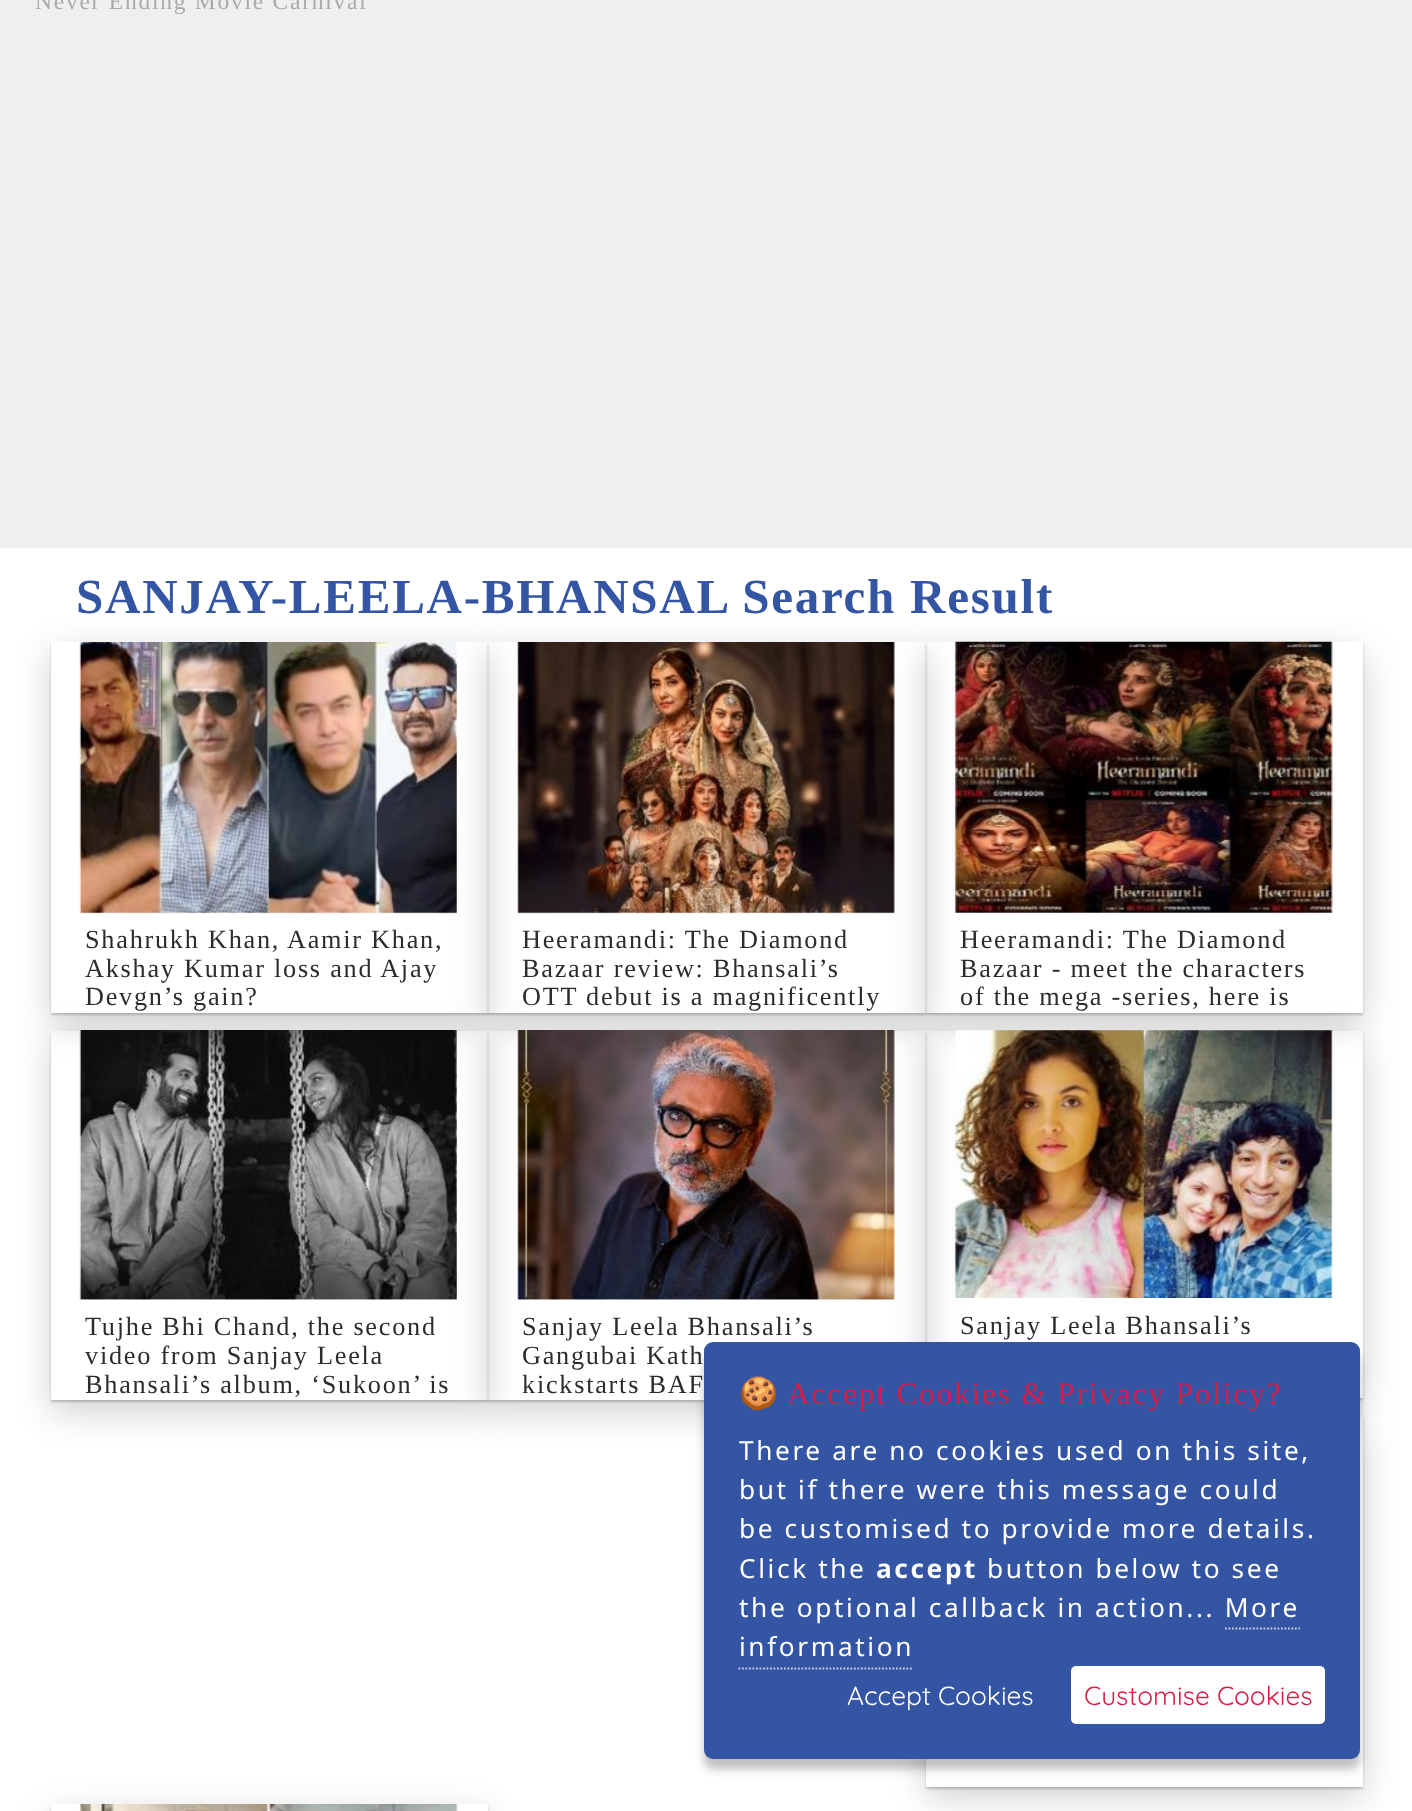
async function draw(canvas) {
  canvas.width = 1412
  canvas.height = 1811
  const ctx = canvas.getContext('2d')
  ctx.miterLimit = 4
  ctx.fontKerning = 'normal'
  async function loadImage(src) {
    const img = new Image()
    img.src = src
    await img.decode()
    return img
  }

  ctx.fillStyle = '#efefef'
  ctx.fillRect(0, 0, 1412, 1811)
  ctx.letterSpacing = '1.75px'
  ctx.font = '23.5px Liberation Serif'
  ctx.fillStyle = '#aaa'
  ctx.fillText('Never Ending Movie Carnival', 35, 9)
  ctx.fillStyle = '#fff'
  ctx.fillRect(0, 548, 1412, 1263)
  ctx.font = 'bold 49px Liberation Serif'
  ctx.fillStyle = '#3455a4'
  ctx.fillText('SANJAY-LEELA-BHANSAL Search Result', 76, 613)
  ctx.save()
  ctx.beginPath()
  ctx.moveTo(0, 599)
  ctx.lineTo(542, 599)
  ctx.lineTo(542, 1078)
  ctx.lineTo(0, 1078)
  ctx.closePath()
  ctx.moveTo(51, 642)
  ctx.lineTo(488, 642)
  ctx.lineTo(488, 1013)
  ctx.lineTo(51, 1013)
  ctx.closePath()
  ctx.clip('evenodd')
  ctx.fillStyle = '#00000030'
  ctx.filter = 'blur(17.5px)'
  ctx.beginPath()
  ctx.rect(51, 653, 437, 371)
  ctx.fill()
  ctx.filter = 'none'
  ctx.restore()
  ctx.save()
  ctx.beginPath()
  ctx.moveTo(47, 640)
  ctx.lineTo(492, 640)
  ctx.lineTo(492, 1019)
  ctx.lineTo(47, 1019)
  ctx.closePath()
  ctx.moveTo(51, 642)
  ctx.lineTo(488, 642)
  ctx.lineTo(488, 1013)
  ctx.lineTo(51, 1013)
  ctx.closePath()
  ctx.clip('evenodd')
  ctx.fillStyle = '#00000033'
  ctx.filter = 'blur(1px)'
  ctx.beginPath()
  ctx.rect(51, 644, 437, 371)
  ctx.fill()
  ctx.filter = 'none'
  ctx.restore()
  ctx.drawImage(await loadImage('image0.png'), 79, 642, 378, 272)
  ctx.font = '26.25px Liberation Serif'
  ctx.fillStyle = '#2c2c2c'
  ctx.fillText('Shahrukh Khan, Aamir Khan,', 85, 948)
  ctx.fillText('Akshay Kumar loss and Ajay', 85, 977)
  ctx.fillText('Devgn’s gain?', 85, 1005)
  ctx.save()
  ctx.beginPath()
  ctx.moveTo(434, 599)
  ctx.lineTo(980, 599)
  ctx.lineTo(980, 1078)
  ctx.lineTo(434, 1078)
  ctx.closePath()
  ctx.moveTo(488, 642)
  ctx.lineTo(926, 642)
  ctx.lineTo(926, 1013)
  ctx.lineTo(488, 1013)
  ctx.closePath()
  ctx.clip('evenodd')
  ctx.fillStyle = '#00000030'
  ctx.filter = 'blur(17.5px)'
  ctx.beginPath()
  ctx.rect(488, 653, 438, 371)
  ctx.fill()
  ctx.filter = 'none'
  ctx.restore()
  ctx.save()
  ctx.beginPath()
  ctx.moveTo(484, 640)
  ctx.lineTo(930, 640)
  ctx.lineTo(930, 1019)
  ctx.lineTo(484, 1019)
  ctx.closePath()
  ctx.moveTo(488, 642)
  ctx.lineTo(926, 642)
  ctx.lineTo(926, 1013)
  ctx.lineTo(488, 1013)
  ctx.closePath()
  ctx.clip('evenodd')
  ctx.fillStyle = '#00000033'
  ctx.filter = 'blur(1px)'
  ctx.beginPath()
  ctx.rect(488, 644, 438, 371)
  ctx.fill()
  ctx.filter = 'none'
  ctx.restore()
  ctx.drawImage(await loadImage('image1.png'), 517, 642, 378, 272)
  ctx.fillStyle = '#fff'
  ctx.fillRect(515, 914, 1, 87)
  ctx.fillStyle = '#2c2c2c'
  ctx.fillText('Heeramandi: The Diamond', 522, 948)
  ctx.fillText('Bazaar review: Bhansali’s', 522, 977)
  ctx.fillText('OTT debut is a magnificently', 522, 1005)
  ctx.save()
  ctx.beginPath()
  ctx.moveTo(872, 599)
  ctx.lineTo(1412, 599)
  ctx.lineTo(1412, 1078)
  ctx.lineTo(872, 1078)
  ctx.closePath()
  ctx.moveTo(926, 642)
  ctx.lineTo(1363, 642)
  ctx.lineTo(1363, 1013)
  ctx.lineTo(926, 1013)
  ctx.closePath()
  ctx.clip('evenodd')
  ctx.fillStyle = '#00000030'
  ctx.filter = 'blur(17.5px)'
  ctx.beginPath()
  ctx.rect(926, 653, 437, 371)
  ctx.fill()
  ctx.filter = 'none'
  ctx.restore()
  ctx.save()
  ctx.beginPath()
  ctx.moveTo(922, 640)
  ctx.lineTo(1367, 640)
  ctx.lineTo(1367, 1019)
  ctx.lineTo(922, 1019)
  ctx.closePath()
  ctx.moveTo(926, 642)
  ctx.lineTo(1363, 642)
  ctx.lineTo(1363, 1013)
  ctx.lineTo(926, 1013)
  ctx.closePath()
  ctx.clip('evenodd')
  ctx.fillStyle = '#00000033'
  ctx.filter = 'blur(1px)'
  ctx.beginPath()
  ctx.rect(926, 644, 437, 371)
  ctx.fill()
  ctx.filter = 'none'
  ctx.restore()
  ctx.drawImage(await loadImage('image2.png'), 954, 641, 379, 272)
  ctx.fillStyle = '#fff'
  ctx.fillRect(952, 914, 2, 95)
  ctx.fillStyle = '#2c2c2c'
  ctx.fillText('Heeramandi: The Diamond', 960, 948)
  ctx.fillText('Bazaar - meet the characters', 960, 977)
  ctx.fillText('of the mega -series, here is', 960, 1005)
  ctx.save()
  ctx.beginPath()
  ctx.moveTo(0, 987)
  ctx.lineTo(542, 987)
  ctx.lineTo(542, 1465)
  ctx.lineTo(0, 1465)
  ctx.closePath()
  ctx.moveTo(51, 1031)
  ctx.lineTo(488, 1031)
  ctx.lineTo(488, 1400)
  ctx.lineTo(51, 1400)
  ctx.closePath()
  ctx.clip('evenodd')
  ctx.fillStyle = '#00000030'
  ctx.filter = 'blur(17.5px)'
  ctx.beginPath()
  ctx.rect(51, 1041, 437, 370)
  ctx.fill()
  ctx.filter = 'none'
  ctx.restore()
  ctx.save()
  ctx.beginPath()
  ctx.moveTo(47, 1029)
  ctx.lineTo(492, 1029)
  ctx.lineTo(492, 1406)
  ctx.lineTo(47, 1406)
  ctx.closePath()
  ctx.moveTo(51, 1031)
  ctx.lineTo(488, 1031)
  ctx.lineTo(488, 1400)
  ctx.lineTo(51, 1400)
  ctx.closePath()
  ctx.clip('evenodd')
  ctx.fillStyle = '#00000033'
  ctx.filter = 'blur(1px)'
  ctx.beginPath()
  ctx.rect(51, 1033, 437, 369)
  ctx.fill()
  ctx.filter = 'none'
  ctx.restore()
  ctx.drawImage(await loadImage('image3.png'), 79, 1030, 378, 270)
  ctx.fillText('Tujhe Bhi Chand, the second', 85, 1335)
  ctx.fillText('video from Sanjay Leela', 85, 1364)
  ctx.fillText('Bhansali’s album, ‘Sukoon’ is', 85, 1393)
  ctx.save()
  ctx.beginPath()
  ctx.moveTo(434, 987)
  ctx.lineTo(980, 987)
  ctx.lineTo(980, 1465)
  ctx.lineTo(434, 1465)
  ctx.closePath()
  ctx.moveTo(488, 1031)
  ctx.lineTo(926, 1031)
  ctx.lineTo(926, 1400)
  ctx.lineTo(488, 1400)
  ctx.closePath()
  ctx.clip('evenodd')
  ctx.fillStyle = '#00000030'
  ctx.filter = 'blur(17.5px)'
  ctx.beginPath()
  ctx.rect(488, 1041, 438, 370)
  ctx.fill()
  ctx.filter = 'none'
  ctx.restore()
  ctx.save()
  ctx.beginPath()
  ctx.moveTo(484, 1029)
  ctx.lineTo(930, 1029)
  ctx.lineTo(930, 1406)
  ctx.lineTo(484, 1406)
  ctx.closePath()
  ctx.moveTo(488, 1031)
  ctx.lineTo(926, 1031)
  ctx.lineTo(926, 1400)
  ctx.lineTo(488, 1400)
  ctx.closePath()
  ctx.clip('evenodd')
  ctx.fillStyle = '#00000033'
  ctx.filter = 'blur(1px)'
  ctx.beginPath()
  ctx.rect(488, 1033, 438, 369)
  ctx.fill()
  ctx.filter = 'none'
  ctx.restore()
  ctx.drawImage(await loadImage('image4.png'), 517, 1030, 378, 270)
  ctx.fillStyle = '#fff'
  ctx.fillRect(515, 1300, 1, 88)
  ctx.fillStyle = '#2c2c2c'
  ctx.fillText('Sanjay Leela Bhansali’s', 522, 1335)
  ctx.fillText('Gangubai Kath', 522, 1364)
  ctx.fillText('kickstarts BAF', 522, 1393)
  ctx.save()
  ctx.beginPath()
  ctx.moveTo(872, 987)
  ctx.lineTo(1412, 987)
  ctx.lineTo(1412, 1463)
  ctx.lineTo(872, 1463)
  ctx.closePath()
  ctx.moveTo(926, 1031)
  ctx.lineTo(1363, 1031)
  ctx.lineTo(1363, 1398)
  ctx.lineTo(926, 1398)
  ctx.closePath()
  ctx.clip('evenodd')
  ctx.fillStyle = '#00000030'
  ctx.filter = 'blur(17.5px)'
  ctx.beginPath()
  ctx.rect(926, 1041, 437, 368)
  ctx.fill()
  ctx.filter = 'none'
  ctx.restore()
  ctx.save()
  ctx.beginPath()
  ctx.moveTo(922, 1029)
  ctx.lineTo(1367, 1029)
  ctx.lineTo(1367, 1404)
  ctx.lineTo(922, 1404)
  ctx.closePath()
  ctx.moveTo(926, 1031)
  ctx.lineTo(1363, 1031)
  ctx.lineTo(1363, 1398)
  ctx.lineTo(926, 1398)
  ctx.closePath()
  ctx.clip('evenodd')
  ctx.fillStyle = '#00000033'
  ctx.filter = 'blur(1px)'
  ctx.beginPath()
  ctx.rect(926, 1033, 437, 367)
  ctx.fill()
  ctx.filter = 'none'
  ctx.restore()
  ctx.drawImage(await loadImage('image5.png'), 954, 1030, 379, 268)
  ctx.fillStyle = '#fff'
  ctx.fillRect(952, 1299, 2, 43)
  ctx.fillStyle = '#2c2c2c'
  ctx.fillText('Sanjay Leela Bhansali’s', 960, 1334)
  ctx.save()
  ctx.beginPath()
  ctx.moveTo(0, 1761)
  ctx.lineTo(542, 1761)
  ctx.lineTo(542, 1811)
  ctx.lineTo(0, 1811)
  ctx.closePath()
  ctx.moveTo(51, 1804)
  ctx.lineTo(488, 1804)
  ctx.lineTo(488, 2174)
  ctx.lineTo(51, 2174)
  ctx.closePath()
  ctx.clip('evenodd')
  ctx.fillStyle = '#00000030'
  ctx.filter = 'blur(17.5px)'
  ctx.beginPath()
  ctx.rect(51, 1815, 437, 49)
  ctx.fill()
  ctx.filter = 'none'
  ctx.restore()
  ctx.save()
  ctx.beginPath()
  ctx.moveTo(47, 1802)
  ctx.lineTo(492, 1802)
  ctx.lineTo(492, 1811)
  ctx.lineTo(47, 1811)
  ctx.closePath()
  ctx.moveTo(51, 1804)
  ctx.lineTo(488, 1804)
  ctx.lineTo(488, 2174)
  ctx.lineTo(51, 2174)
  ctx.closePath()
  ctx.clip('evenodd')
  ctx.fillStyle = '#00000033'
  ctx.filter = 'blur(1px)'
  ctx.beginPath()
  ctx.rect(51, 1806, 437, 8)
  ctx.fill()
  ctx.filter = 'none'
  ctx.restore()
  ctx.drawImage(await loadImage('image6.png'), 79, 1804, 379, 7)
  ctx.save()
  ctx.beginPath()
  ctx.moveTo(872, 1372)
  ctx.lineTo(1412, 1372)
  ctx.lineTo(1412, 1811)
  ctx.lineTo(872, 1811)
  ctx.closePath()
  ctx.moveTo(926, 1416)
  ctx.lineTo(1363, 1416)
  ctx.lineTo(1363, 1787)
  ctx.lineTo(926, 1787)
  ctx.closePath()
  ctx.clip('evenodd')
  ctx.fillStyle = '#00000030'
  ctx.filter = 'blur(17.5px)'
  ctx.beginPath()
  ctx.rect(926, 1426, 437, 371)
  ctx.fill()
  ctx.filter = 'none'
  ctx.restore()
  ctx.save()
  ctx.beginPath()
  ctx.moveTo(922, 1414)
  ctx.lineTo(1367, 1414)
  ctx.lineTo(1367, 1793)
  ctx.lineTo(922, 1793)
  ctx.closePath()
  ctx.moveTo(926, 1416)
  ctx.lineTo(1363, 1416)
  ctx.lineTo(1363, 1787)
  ctx.lineTo(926, 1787)
  ctx.closePath()
  ctx.clip('evenodd')
  ctx.fillStyle = '#00000033'
  ctx.filter = 'blur(1px)'
  ctx.beginPath()
  ctx.rect(926, 1418, 437, 371)
  ctx.fill()
  ctx.filter = 'none'
  ctx.restore()
  ctx.fillStyle = '#fff'
  ctx.fillRect(952, 1786, 385, 1)
  ctx.fillStyle = '#00000040'
  ctx.filter = 'blur(5px)'
  ctx.beginPath()
  ctx.roundRect(704, 1353, 656, 416, 9)
  ctx.fill()
  ctx.filter = 'none'
  ctx.fillStyle = '#3455a4'
  ctx.beginPath()
  ctx.roundRect(704, 1342, 656, 417, 9)
  ctx.fill()
  ctx.font = '31.5px Noto Color Emoji'
  ctx.fillStyle = '#d81d47'
  ctx.fillText('🍪', 739, 1404)
  ctx.font = '31.5px Liberation Serif'
  ctx.fillText('Accept Cookies & Privacy Policy?', 787, 1404)
  ctx.letterSpacing = '2.6px'
  ctx.font = '26.25px Noto Sans'
  ctx.fillStyle = '#fff'
  ctx.fillText('There are no cookies used on this site,', 739, 1460)
  ctx.fillText('but if there were this message could', 739, 1499)
  ctx.fillText('be customised to provide more details.', 739, 1538)
  ctx.fillText('Click the', 739, 1578)
  ctx.font = 'bold 26.25px Noto Sans'
  ctx.fillText('accept', 876, 1578)
  ctx.font = '26.25px Noto Sans'
  ctx.fillText('button below to see', 987, 1578)
  ctx.fillText('the optional callback in action... More', 739, 1617)
  ctx.fillText('information', 739, 1656)
  ctx.beginPath()
  ctx.moveTo(1225, 1628.5)
  ctx.lineTo(1300, 1628.5)
  ctx.strokeStyle = '#ccd5e8'
  ctx.lineWidth = 1.8
  ctx.setLineDash([1.75, 1.75])
  ctx.stroke()
  ctx.beginPath()
  ctx.moveTo(738.5, 1668.5)
  ctx.lineTo(913.5, 1668.5)
  ctx.stroke()
  ctx.letterSpacing = '0px'
  ctx.font = '26.25px Quicksand'
  ctx.fillText('Accept Cookies', 847, 1705)
  ctx.beginPath()
  ctx.roundRect(1071, 1666, 254, 58, 5)
  ctx.fill()
  ctx.fillStyle = '#d81d47'
  ctx.fillText('Customise Cookies', 1084, 1705)
}

draw(document.querySelector('canvas'))
